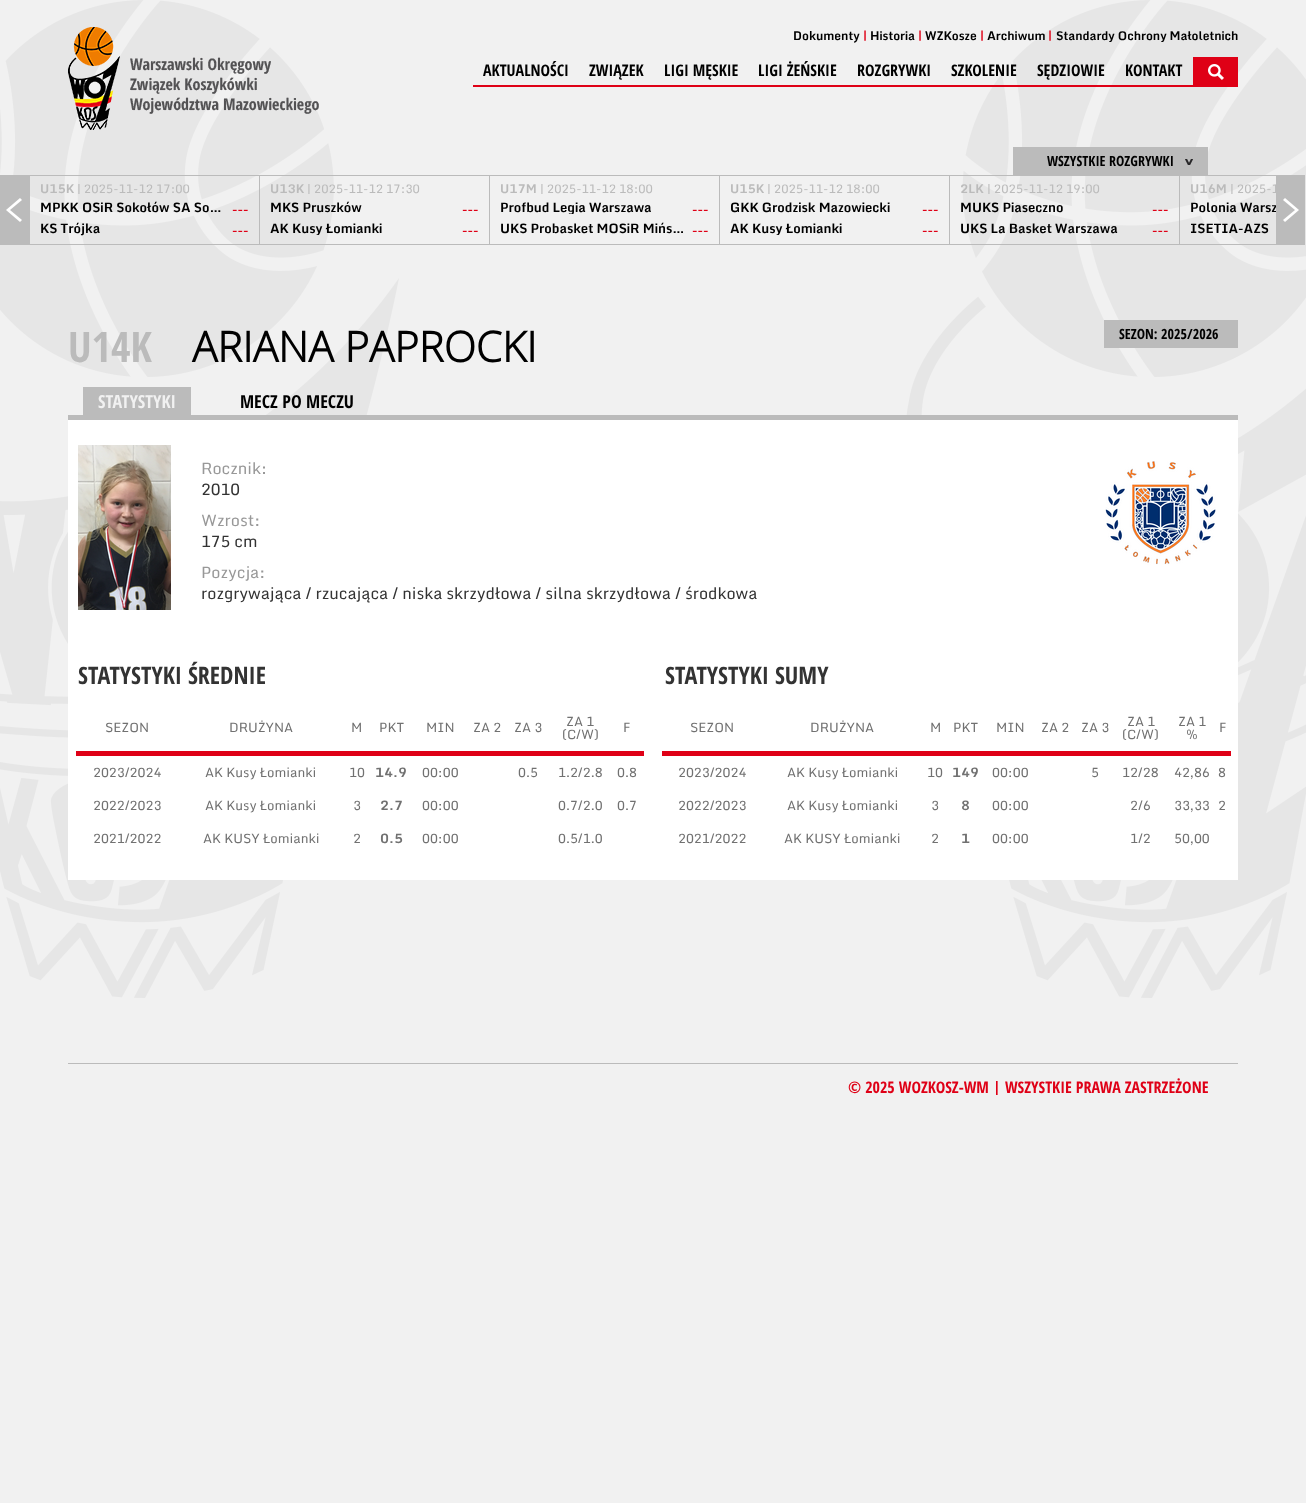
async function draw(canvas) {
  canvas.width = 1306
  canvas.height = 1503
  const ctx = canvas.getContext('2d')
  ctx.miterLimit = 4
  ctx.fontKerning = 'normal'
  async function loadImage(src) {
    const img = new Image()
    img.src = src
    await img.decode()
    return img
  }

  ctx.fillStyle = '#f1f1f1'
  ctx.fillRect(0, 0, 1306, 1503)
  ctx.drawImage(await loadImage('image0.png'), 0, 0, 1306, 998)
  ctx.drawImage(await loadImage('image1.png'), 68, 27, 251, 103)
  ctx.font = 'bold 12px Monda'
  ctx.fillStyle = '#000'
  ctx.fillText('Dokumenty', 793, 40)
  ctx.fillStyle = '#df0016'
  ctx.fillText('|', 863, 40)
  ctx.fillStyle = '#000'
  ctx.fillText('Historia', 870, 40)
  ctx.fillStyle = '#df0016'
  ctx.fillText('|', 918, 40)
  ctx.fillStyle = '#000'
  ctx.fillText('WZKosze', 925, 40)
  ctx.fillStyle = '#df0016'
  ctx.fillText('|', 980, 40)
  ctx.fillStyle = '#000'
  ctx.fillText('Archiwum', 987, 40)
  ctx.fillStyle = '#df0016'
  ctx.fillText('|', 1048, 40)
  ctx.save()
  ctx.beginPath()
  ctx.rect(793, 30, 445, 12)
  ctx.clip()
  ctx.fillStyle = '#000'
  ctx.fillText('Standardy Ochrony Małoletnich', 1056, 40)
  ctx.restore()
  ctx.fillRect(473, 85, 765, 2)
  ctx.font = 'bold 16px Open Sans Condensed'
  ctx.fillStyle = '#000'
  ctx.fillText('AKTUALNOŚCI', 483, 76)
  ctx.fillText('ZWIĄZEK', 589, 76)
  ctx.fillText('LIGI MĘSKIE', 664, 76)
  ctx.fillText('LIGI ŻEŃSKIE', 758, 76)
  ctx.fillText('ROZGRYWKI', 857, 76)
  ctx.fillText('SZKOLENIE', 951, 76)
  ctx.fillText('SĘDZIOWIE', 1037, 76)
  ctx.fillText('KONTAKT', 1125, 76)
  ctx.drawImage(await loadImage('image2.png'), 1193, 57, 45, 28)
  ctx.fillStyle = '#bbb'
  ctx.fillRect(1013, 147, 195, 28)
  ctx.font = 'bold 14px Open Sans Condensed'
  ctx.fillStyle = '#000'
  ctx.fillText('WSZYSTKIE ROZGRYWKI', 1047, 166)
  ctx.drawImage(await loadImage('image3.png'), 1185, 159, 8, 6)
  ctx.drawImage(await loadImage('image4.png'), 0, 175, 30, 70)
  ctx.fillStyle = '#bbb'
  ctx.fillRect(30, 175, 1246, 1)
  ctx.fillRect(259, 175, 1, 70)
  ctx.fillRect(30, 244, 230, 1)
  ctx.font = 'bold 12px Monda'
  ctx.fillText('U15K', 40, 193)
  ctx.font = '12px Monda'
  ctx.fillText('| 2025-11-12 17:00', 77, 193)
  ctx.font = 'bold 13px Monda'
  ctx.fillStyle = '#000'
  ctx.fillText('MPKK OSiR Sokołów SA So…', 40, 212)
  ctx.fillStyle = '#df0016'
  ctx.fillText('---', 232, 214)
  ctx.fillStyle = '#000'
  ctx.fillText('KS Trójka', 40, 233)
  ctx.fillStyle = '#df0016'
  ctx.fillText('---', 232, 235)
  ctx.fillStyle = '#bbb'
  ctx.fillRect(489, 175, 1, 70)
  ctx.fillRect(260, 244, 230, 1)
  ctx.font = 'bold 12px Monda'
  ctx.fillText('U13K', 270, 193)
  ctx.font = '12px Monda'
  ctx.fillText('| 2025-11-12 17:30', 307, 193)
  ctx.font = 'bold 13px Monda'
  ctx.fillStyle = '#000'
  ctx.fillText('MKS Pruszków', 270, 212)
  ctx.fillStyle = '#df0016'
  ctx.fillText('---', 462, 214)
  ctx.save()
  ctx.beginPath()
  ctx.rect(270, 222, 185, 13)
  ctx.clip()
  ctx.fillStyle = '#000'
  ctx.fillText('AK Kusy Łomianki', 270, 233)
  ctx.restore()
  ctx.fillText('---', 462, 235)
  ctx.fillStyle = '#bbb'
  ctx.fillRect(719, 175, 1, 70)
  ctx.fillRect(490, 244, 230, 1)
  ctx.font = 'bold 12px Monda'
  ctx.fillText('U17M', 500, 193)
  ctx.font = '12px Monda'
  ctx.fillText('| 2025-11-12 18:00', 540, 193)
  ctx.save()
  ctx.beginPath()
  ctx.rect(500, 201, 185, 13)
  ctx.clip()
  ctx.font = 'bold 13px Monda'
  ctx.fillStyle = '#000'
  ctx.fillText('Profbud Legia Warszawa', 500, 212)
  ctx.restore()
  ctx.font = 'bold 13px Monda'
  ctx.fillStyle = '#df0016'
  ctx.fillText('---', 692, 214)
  ctx.fillStyle = '#000'
  ctx.fillText('UKS Probasket MOSiR Mińs…', 500, 233)
  ctx.fillStyle = '#df0016'
  ctx.fillText('---', 692, 235)
  ctx.fillStyle = '#bbb'
  ctx.fillRect(949, 175, 1, 70)
  ctx.fillRect(720, 244, 230, 1)
  ctx.font = 'bold 12px Monda'
  ctx.fillText('U15K', 730, 193)
  ctx.font = '12px Monda'
  ctx.fillText('| 2025-11-12 18:00', 767, 193)
  ctx.font = 'bold 13px Monda'
  ctx.fillStyle = '#000'
  ctx.fillText('GKK Grodzisk Mazowiecki', 730, 212)
  ctx.fillStyle = '#df0016'
  ctx.fillText('---', 922, 214)
  ctx.save()
  ctx.beginPath()
  ctx.rect(730, 222, 185, 13)
  ctx.clip()
  ctx.fillStyle = '#000'
  ctx.fillText('AK Kusy Łomianki', 730, 233)
  ctx.restore()
  ctx.fillText('---', 922, 235)
  ctx.fillStyle = '#bbb'
  ctx.fillRect(1179, 175, 1, 70)
  ctx.fillRect(950, 244, 326, 1)
  ctx.font = 'bold 12px Monda'
  ctx.fillText('2LK', 960, 193)
  ctx.font = '12px Monda'
  ctx.fillText('| 2025-11-12 19:00', 987, 193)
  ctx.font = 'bold 13px Monda'
  ctx.fillStyle = '#000'
  ctx.fillText('MUKS Piaseczno', 960, 212)
  ctx.fillStyle = '#df0016'
  ctx.fillText('---', 1152, 214)
  ctx.fillStyle = '#000'
  ctx.fillText('UKS La Basket Warszawa', 960, 233)
  ctx.fillStyle = '#df0016'
  ctx.fillText('---', 1152, 235)
  ctx.font = 'bold 12px Monda'
  ctx.fillStyle = '#bbb'
  ctx.fillText('U16M', 1190, 193)
  ctx.save()
  ctx.beginPath()
  ctx.rect(30, 175, 1246, 70)
  ctx.clip()
  ctx.font = '12px Monda'
  ctx.fillText('| 2025-1', 1230, 193)
  ctx.restore()
  ctx.save()
  ctx.beginPath()
  ctx.rect(1190, 201, 86, 13)
  ctx.clip()
  ctx.font = 'bold 13px Monda'
  ctx.fillStyle = '#000'
  ctx.fillText('Polonia Warsz', 1190, 212)
  ctx.restore()
  ctx.font = 'bold 13px Monda'
  ctx.fillStyle = '#000'
  ctx.fillText('ISETIA-AZS', 1190, 233)
  ctx.drawImage(await loadImage('image5.png'), 1276, 175, 29, 70)
  ctx.font = 'bold 42px Open Sans Condensed'
  ctx.fillStyle = '#bbb'
  ctx.fillText('U14K', 68, 362)
  ctx.font = 'bold 42px Open Sans'
  ctx.fillStyle = '#000'
  ctx.fillText('ARIANA PAPROCKI', 192, 362)
  ctx.fillStyle = '#bbb'
  ctx.fillRect(1104, 320, 134, 28)
  ctx.font = 'bold 14px Open Sans Condensed'
  ctx.fillStyle = '#000'
  ctx.fillText('SEZON: 2025/2026', 1119, 339)
  ctx.fillStyle = '#bbb'
  ctx.fillRect(68, 415, 1170, 5)
  ctx.fillRect(83, 387, 108, 28)
  ctx.font = 'bold 18px Open Sans Condensed'
  ctx.fillStyle = '#f1f1f1'
  ctx.fillText('STATYSTYKI', 98, 408)
  ctx.fillStyle = '#000'
  ctx.fillText('MECZ PO MECZU', 240, 408)
  ctx.fillStyle = '#fff'
  ctx.fillRect(68, 420, 1170, 460)
  ctx.drawImage(await loadImage('image6.png'), 78, 445, 93, 165)
  ctx.font = '16px Monda'
  ctx.fillStyle = '#989898'
  ctx.fillText('Rocznik:', 201, 474)
  ctx.fillStyle = '#333'
  ctx.fillText('2010', 201, 495)
  ctx.fillStyle = '#989898'
  ctx.fillText('Wzrost:', 201, 526)
  ctx.fillStyle = '#333'
  ctx.fillText('175 cm', 201, 547)
  ctx.fillStyle = '#989898'
  ctx.fillText('Pozycja:', 201, 578)
  ctx.fillStyle = '#333'
  ctx.fillText('rozgrywająca / rzucająca / niska skrzydłowa / silna skrzydłowa / środkowa', 201, 599)
  ctx.drawImage(await loadImage('image7.png'), 1105, 461, 111, 104)
  ctx.font = 'bold 24px Open Sans Condensed'
  ctx.fillText('STATYSTYKI ŚREDNIE', 78, 684)
  ctx.font = '13px Monda'
  ctx.fillStyle = '#717171'
  ctx.fillText('SEZON', 105, 732)
  ctx.fillText('DRUŻYNA', 229, 732)
  ctx.fillText('M', 351, 732)
  ctx.fillText('PKT', 379, 732)
  ctx.fillText('MIN', 426, 732)
  ctx.fillText('ZA 2', 473, 732)
  ctx.fillText('ZA 3', 514, 732)
  ctx.fillText('ZA 1', 566, 726)
  ctx.fillText('(C/W)', 562, 739)
  ctx.fillStyle = '#df0016'
  ctx.fillRect(76, 751, 568, 5)
  ctx.fillStyle = '#717171'
  ctx.fillText('F', 623, 732)
  ctx.fillText('2023/2024', 93, 777)
  ctx.fillText('AK Kusy Łomianki', 205, 777)
  ctx.fillText('10', 349, 777)
  ctx.font = 'bold 13px Monda'
  ctx.fillText('14.9', 375, 777)
  ctx.font = '13px Monda'
  ctx.fillText('00:00', 422, 777)
  ctx.fillText('0.5', 518, 777)
  ctx.fillText('1.2/2.8', 558, 777)
  ctx.fillText('0.8', 617, 777)
  ctx.fillText('2022/2023', 93, 810)
  ctx.fillText('AK Kusy Łomianki', 205, 810)
  ctx.fillText('3', 353, 810)
  ctx.font = 'bold 13px Monda'
  ctx.fillText('2.7', 380, 810)
  ctx.font = '13px Monda'
  ctx.fillText('00:00', 422, 810)
  ctx.fillText('0.7/2.0', 558, 810)
  ctx.fillText('0.7', 617, 810)
  ctx.fillText('2021/2022', 93, 843)
  ctx.fillText('AK KUSY Łomianki', 203, 843)
  ctx.fillText('2', 353, 843)
  ctx.font = 'bold 13px Monda'
  ctx.fillText('0.5', 380, 843)
  ctx.font = '13px Monda'
  ctx.fillText('00:00', 422, 843)
  ctx.fillText('0.5/1.0', 558, 843)
  ctx.font = 'bold 24px Open Sans Condensed'
  ctx.fillStyle = '#333'
  ctx.fillText('STATYSTYKI SUMY', 665, 684)
  ctx.font = '13px Monda'
  ctx.fillStyle = '#717171'
  ctx.fillText('SEZON', 690, 732)
  ctx.fillText('DRUŻYNA', 810, 732)
  ctx.fillText('M', 930, 732)
  ctx.fillText('PKT', 953, 732)
  ctx.fillText('MIN', 996, 732)
  ctx.fillText('ZA 2', 1041, 732)
  ctx.fillText('ZA 3', 1081, 732)
  ctx.fillText('ZA 1', 1127, 726)
  ctx.fillText('(C/W)', 1122, 739)
  ctx.fillText('ZA 1', 1178, 726)
  ctx.fillText('%', 1186, 739)
  ctx.fillStyle = '#df0016'
  ctx.fillRect(662, 751, 569, 5)
  ctx.fillStyle = '#717171'
  ctx.fillText('F', 1219, 732)
  ctx.fillText('2023/2024', 678, 777)
  ctx.fillText('AK Kusy Łomianki', 787, 777)
  ctx.fillText('10', 927, 777)
  ctx.font = 'bold 13px Monda'
  ctx.fillText('149', 952, 777)
  ctx.font = '13px Monda'
  ctx.fillText('00:00', 992, 777)
  ctx.fillText('5', 1091, 777)
  ctx.fillText('12/28', 1122, 777)
  ctx.fillText('42,86', 1174, 777)
  ctx.fillText('8', 1218, 777)
  ctx.fillText('2022/2023', 678, 810)
  ctx.fillText('AK Kusy Łomianki', 787, 810)
  ctx.fillText('3', 931, 810)
  ctx.font = 'bold 13px Monda'
  ctx.fillText('8', 961, 810)
  ctx.font = '13px Monda'
  ctx.fillText('00:00', 992, 810)
  ctx.fillText('2/6', 1130, 810)
  ctx.fillText('33,33', 1174, 810)
  ctx.fillText('2', 1218, 810)
  ctx.fillText('2021/2022', 678, 843)
  ctx.fillText('AK KUSY Łomianki', 784, 843)
  ctx.fillText('2', 931, 843)
  ctx.font = 'bold 13px Monda'
  ctx.fillText('1', 961, 843)
  ctx.font = '13px Monda'
  ctx.fillText('00:00', 992, 843)
  ctx.fillText('1/2', 1130, 843)
  ctx.fillText('50,00', 1174, 843)
  ctx.fillStyle = '#bbb'
  ctx.fillRect(68, 1063, 1170, 1)
  ctx.save()
  ctx.beginPath()
  ctx.rect(68, 1064, 1170, 31)
  ctx.clip()
  ctx.font = 'bold 16px Open Sans Condensed'
  ctx.fillStyle = '#df0016'
  ctx.fillText('© 2025 WOZKOSZ-WM | WSZYSTKIE PRAWA ZASTRZEŻONE', 848, 1093)
  ctx.restore()
}

draw(document.querySelector('canvas'))
